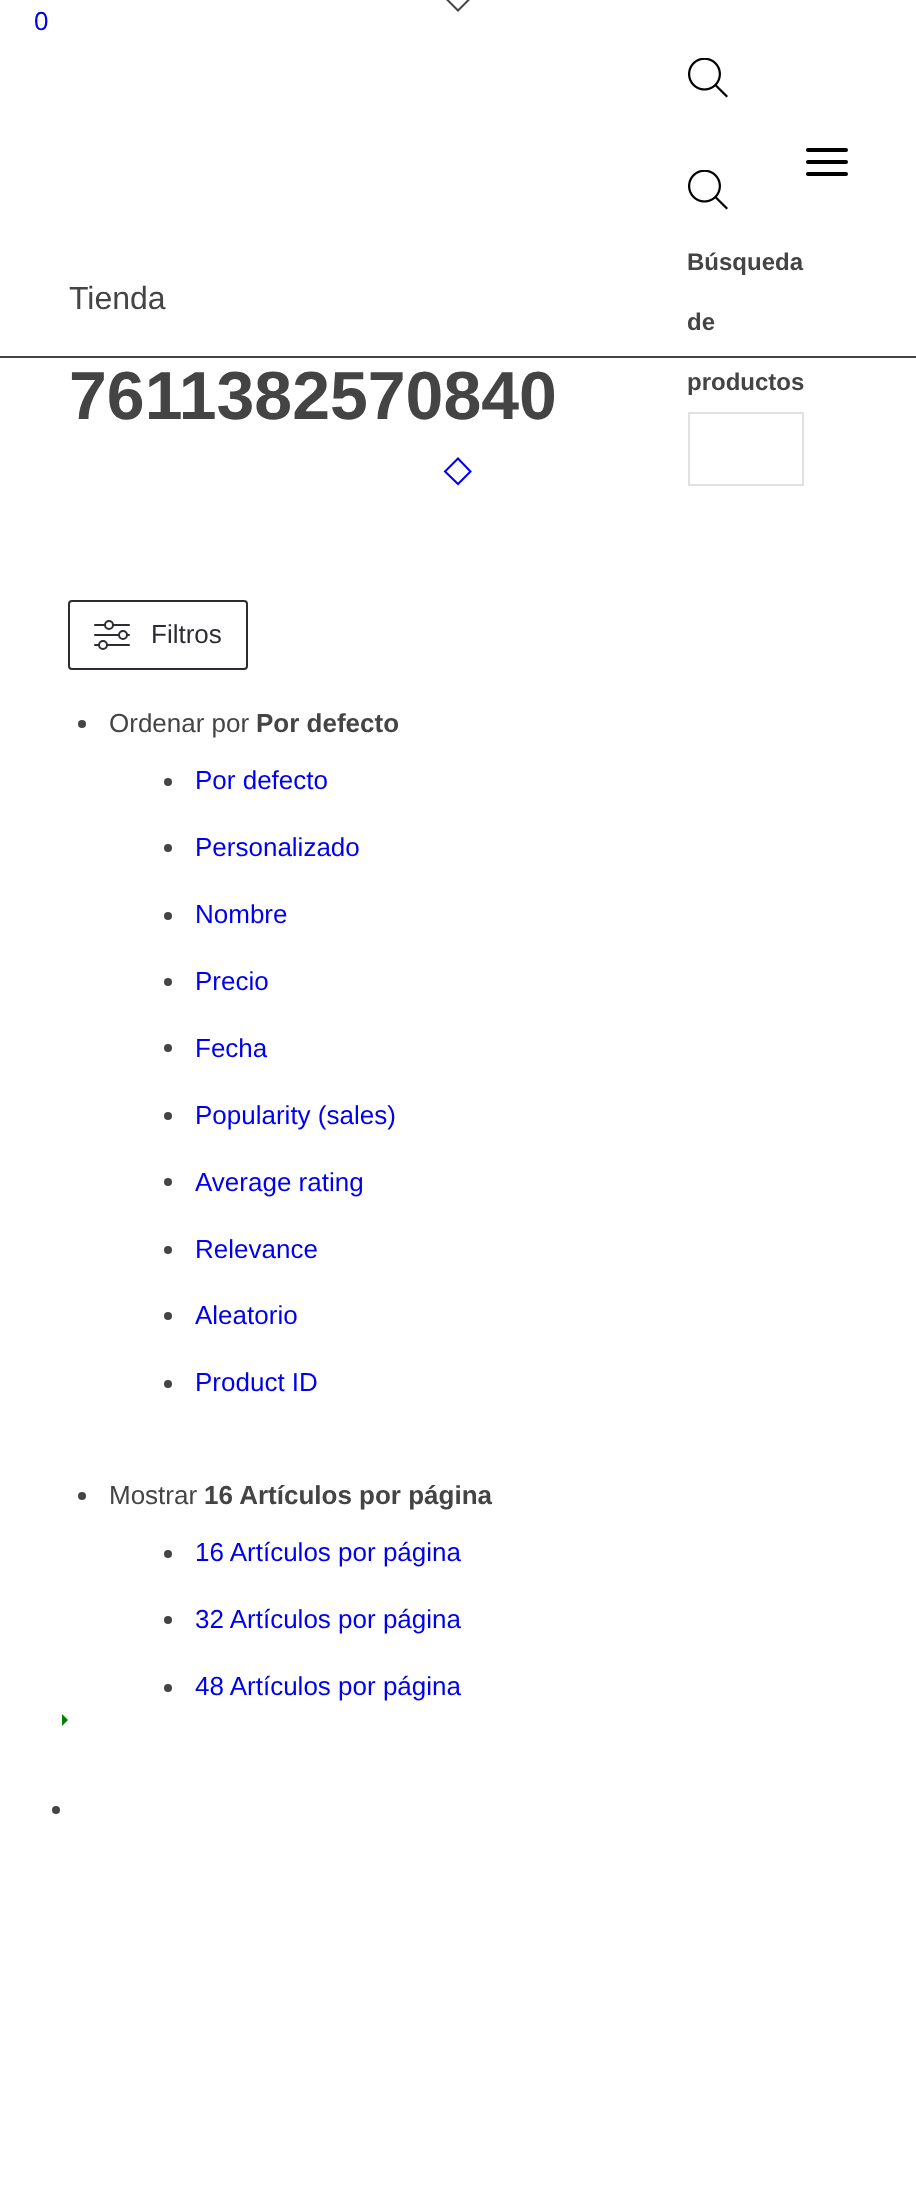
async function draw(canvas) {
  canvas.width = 916
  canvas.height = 2193
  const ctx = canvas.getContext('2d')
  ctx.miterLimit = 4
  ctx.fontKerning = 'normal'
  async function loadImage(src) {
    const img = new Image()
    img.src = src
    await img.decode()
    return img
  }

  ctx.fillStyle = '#fff'
  ctx.fillRect(0, 0, 916, 2193)
  ctx.beginPath()
  ctx.moveTo(458, -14.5)
  ctx.lineTo(470.5, -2)
  ctx.lineTo(458, 10.5)
  ctx.lineTo(445.5, -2)
  ctx.closePath()
  ctx.strokeStyle = '#444'
  ctx.lineWidth = 2
  ctx.stroke()
  ctx.font = '26px Liberation Sans'
  ctx.fillStyle = '#00e'
  ctx.fillText('0', 34, 30)
  ctx.fillStyle = '#000'
  ctx.beginPath()
  ctx.roundRect(806, 160, 42, 4, 2)
  ctx.fill()
  ctx.beginPath()
  ctx.roundRect(806, 148, 42, 4, 2)
  ctx.fill()
  ctx.beginPath()
  ctx.roundRect(806, 172, 42, 4, 2)
  ctx.fill()
  ctx.drawImage(await loadImage('image0.png'), 688, 58, 40, 40)
  ctx.drawImage(await loadImage('image0.png'), 688, 170, 40, 40)
  ctx.font = 'bold 24px Liberation Sans'
  ctx.fillStyle = '#444'
  ctx.fillText('Búsqueda', 687, 270)
  ctx.fillText('de', 687, 330)
  ctx.fillText('productos', 687, 390)
  ctx.strokeStyle = '#e1e1e1'
  ctx.strokeRect(689, 413, 114, 72)
  ctx.font = '32px Liberation Sans'
  ctx.fillText('Tienda', 69, 309)
  ctx.fillRect(0, 356, 916, 2)
  ctx.font = 'bold 68px Liberation Sans'
  ctx.fillText('7611382570840', 69, 419)
  ctx.beginPath()
  ctx.moveTo(458, 458.5)
  ctx.lineTo(470.5, 471.5)
  ctx.lineTo(458, 484)
  ctx.lineTo(445, 471.5)
  ctx.closePath()
  ctx.strokeStyle = '#00e'
  ctx.stroke()
  ctx.beginPath()
  ctx.arc(56, 1810, 4, 0, 2 * Math.PI)
  ctx.fill()
  ctx.beginPath()
  ctx.roundRect(69, 601, 178, 68, 3)
  ctx.strokeStyle = '#2c2d33'
  ctx.stroke()
  ctx.fillStyle = '#2c2d33'
  ctx.beginPath()
  ctx.roundRect(94, 624, 36, 2, 1)
  ctx.fill()
  ctx.fillStyle = '#fff'
  ctx.beginPath()
  ctx.arc(109, 625, 4, 0, 2 * Math.PI)
  ctx.fill()
  ctx.stroke()
  ctx.fillStyle = '#2c2d33'
  ctx.beginPath()
  ctx.roundRect(94, 634, 36, 2, 1)
  ctx.fill()
  ctx.fillStyle = '#fff'
  ctx.beginPath()
  ctx.arc(123, 635, 4, 0, 2 * Math.PI)
  ctx.fill()
  ctx.stroke()
  ctx.fillStyle = '#2c2d33'
  ctx.beginPath()
  ctx.roundRect(94, 644, 36, 2, 1)
  ctx.fill()
  ctx.fillStyle = '#fff'
  ctx.beginPath()
  ctx.arc(103, 645, 4, 0, 2 * Math.PI)
  ctx.fill()
  ctx.stroke()
  ctx.font = '26px Liberation Sans'
  ctx.fillStyle = '#2c2d33'
  ctx.fillText('Filtros', 151, 643)
  ctx.fillStyle = '#444'
  ctx.beginPath()
  ctx.arc(82, 724, 4, 0, 2 * Math.PI)
  ctx.fill()
  ctx.fillText('Ordenar por', 109, 732)
  ctx.font = 'bold 26px Liberation Sans'
  ctx.fillText('Por defecto', 256, 732)
  ctx.beginPath()
  ctx.arc(168, 782, 4, 0, 2 * Math.PI)
  ctx.fill()
  ctx.font = '26px Liberation Sans'
  ctx.fillStyle = '#00e'
  ctx.fillText('Por defecto', 195, 789)
  ctx.fillStyle = '#444'
  ctx.beginPath()
  ctx.arc(168, 848, 4, 0, 2 * Math.PI)
  ctx.fill()
  ctx.fillStyle = '#00e'
  ctx.fillText('Personalizado', 195, 856)
  ctx.fillStyle = '#444'
  ctx.beginPath()
  ctx.arc(168, 916, 4, 0, 2 * Math.PI)
  ctx.fill()
  ctx.fillStyle = '#00e'
  ctx.fillText('Nombre', 195, 923)
  ctx.fillStyle = '#444'
  ctx.beginPath()
  ctx.arc(168, 982, 4, 0, 2 * Math.PI)
  ctx.fill()
  ctx.fillStyle = '#00e'
  ctx.fillText('Precio', 195, 990)
  ctx.fillStyle = '#444'
  ctx.beginPath()
  ctx.arc(168, 1048, 4, 0, 2 * Math.PI)
  ctx.fill()
  ctx.fillStyle = '#00e'
  ctx.fillText('Fecha', 195, 1057)
  ctx.fillStyle = '#444'
  ctx.beginPath()
  ctx.arc(168, 1116, 4, 0, 2 * Math.PI)
  ctx.fill()
  ctx.fillStyle = '#00e'
  ctx.fillText('Popularity (sales)', 195, 1124)
  ctx.fillStyle = '#444'
  ctx.beginPath()
  ctx.arc(168, 1182, 4, 0, 2 * Math.PI)
  ctx.fill()
  ctx.fillStyle = '#00e'
  ctx.fillText('Average rating', 195, 1191)
  ctx.fillStyle = '#008000'
  ctx.beginPath()
  ctx.moveTo(62, 1726)
  ctx.lineTo(62, 1714)
  ctx.lineTo(68, 1720)
  ctx.closePath()
  ctx.fill()
  ctx.fillStyle = '#444'
  ctx.beginPath()
  ctx.arc(168, 1250, 4, 0, 2 * Math.PI)
  ctx.fill()
  ctx.fillStyle = '#00e'
  ctx.fillText('Relevance', 195, 1258)
  ctx.fillStyle = '#444'
  ctx.beginPath()
  ctx.arc(168, 1316, 4, 0, 2 * Math.PI)
  ctx.fill()
  ctx.fillStyle = '#00e'
  ctx.fillText('Aleatorio', 195, 1324)
  ctx.fillStyle = '#444'
  ctx.beginPath()
  ctx.arc(168, 1384, 4, 0, 2 * Math.PI)
  ctx.fill()
  ctx.fillStyle = '#00e'
  ctx.fillText('Product ID', 195, 1391)
  ctx.fillStyle = '#444'
  ctx.beginPath()
  ctx.arc(82, 1496, 4, 0, 2 * Math.PI)
  ctx.fill()
  ctx.fillText('Mostrar', 109, 1504)
  ctx.font = 'bold 26px Liberation Sans'
  ctx.fillText('16 Artículos por página', 204, 1504)
  ctx.beginPath()
  ctx.arc(168, 1554, 4, 0, 2 * Math.PI)
  ctx.fill()
  ctx.font = '26px Liberation Sans'
  ctx.fillStyle = '#00e'
  ctx.fillText('16 Artículos por página', 195, 1561)
  ctx.fillStyle = '#444'
  ctx.beginPath()
  ctx.arc(168, 1620, 4, 0, 2 * Math.PI)
  ctx.fill()
  ctx.fillStyle = '#00e'
  ctx.fillText('32 Artículos por página', 195, 1628)
  ctx.fillStyle = '#444'
  ctx.beginPath()
  ctx.arc(168, 1688, 4, 0, 2 * Math.PI)
  ctx.fill()
  ctx.fillStyle = '#00e'
  ctx.fillText('48 Artículos por página', 195, 1695)
}

draw(document.querySelector('canvas'))
